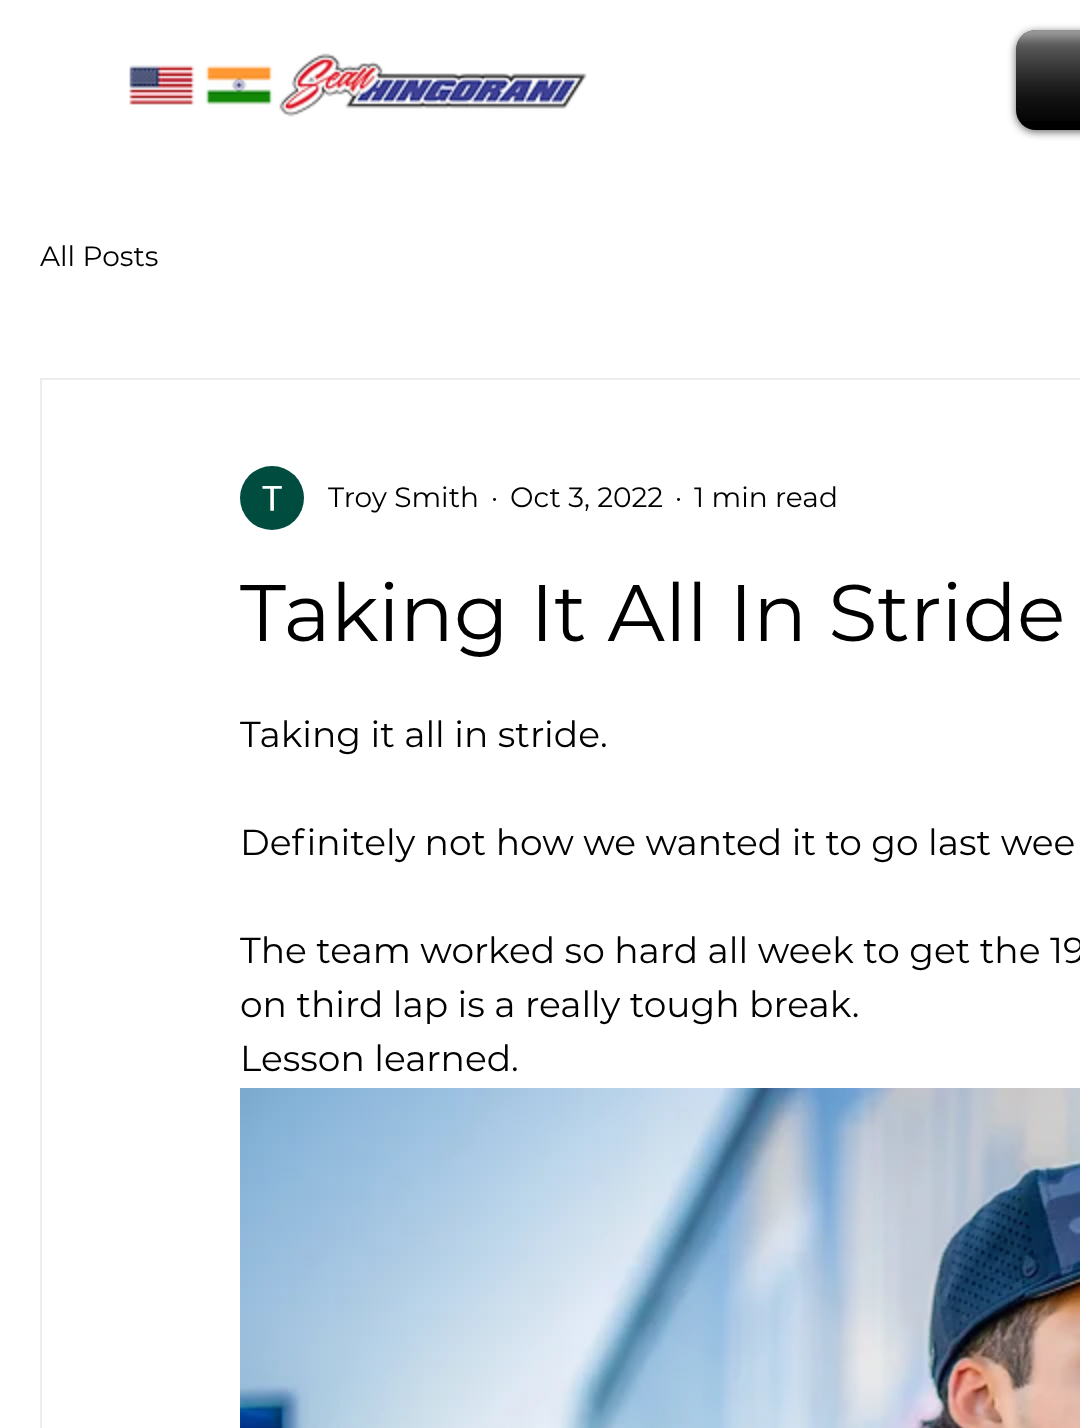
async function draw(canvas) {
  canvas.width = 1080
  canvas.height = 1428
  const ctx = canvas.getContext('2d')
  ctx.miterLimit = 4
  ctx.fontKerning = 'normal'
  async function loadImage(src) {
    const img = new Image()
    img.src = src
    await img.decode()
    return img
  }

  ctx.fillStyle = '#fff'
  ctx.fillRect(0, 0, 1080, 1428)
  ctx.drawImage(await loadImage('image0.png'), 129, 53, 458, 64)
  ctx.fillStyle = '#00000099'
  ctx.filter = 'blur(4px)'
  ctx.beginPath()
  ctx.roundRect(1016, 32, 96, 100, 20)
  ctx.fill()
  ctx.filter = 'none'
  ctx.fillStyle = '#000'
  ctx.beginPath()
  ctx.roundRect(1016, 30, 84, 100, 20)
  ctx.fill()
  ctx.drawImage(await loadImage('image1.png'), 1016, 30, 64, 91)
  ctx.drawImage(await loadImage('image2.png'), 1021, 123, 12, 7)
  ctx.font = '28px Montserrat'
  ctx.fillText('All Posts', 40, 266)
  ctx.strokeStyle = '#eeecec'
  ctx.lineWidth = 2
  ctx.strokeRect(41, 379, 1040, 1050)
  ctx.drawImage(await loadImage('image3.png'), 240, 466, 64, 64)
  ctx.fillText('Troy Smith', 328, 507)
  ctx.fillText('·', 491, 507)
  ctx.fillText('Oct 3, 2022', 510, 507)
  ctx.fillText('·', 675, 507)
  ctx.fillText('1 min read', 694, 507)
  ctx.font = '80px Montserrat'
  ctx.fillText('Taking It All In Stride', 240, 641)
  ctx.font = '36px Montserrat'
  ctx.fillText('Taking it all in stride.', 240, 747)
  ctx.fillText('Definitely not how we wanted it to go last wee', 240, 855)
  ctx.fillText('The team worked so hard all week to get the 19', 240, 963)
  ctx.fillText('on third lap is a really tough break.', 240, 1017)
  ctx.fillText('Lesson learned.', 240, 1071)
  ctx.drawImage(await loadImage('image4.png'), 240, 1088, 840, 340)
}

draw(document.querySelector('canvas'))
